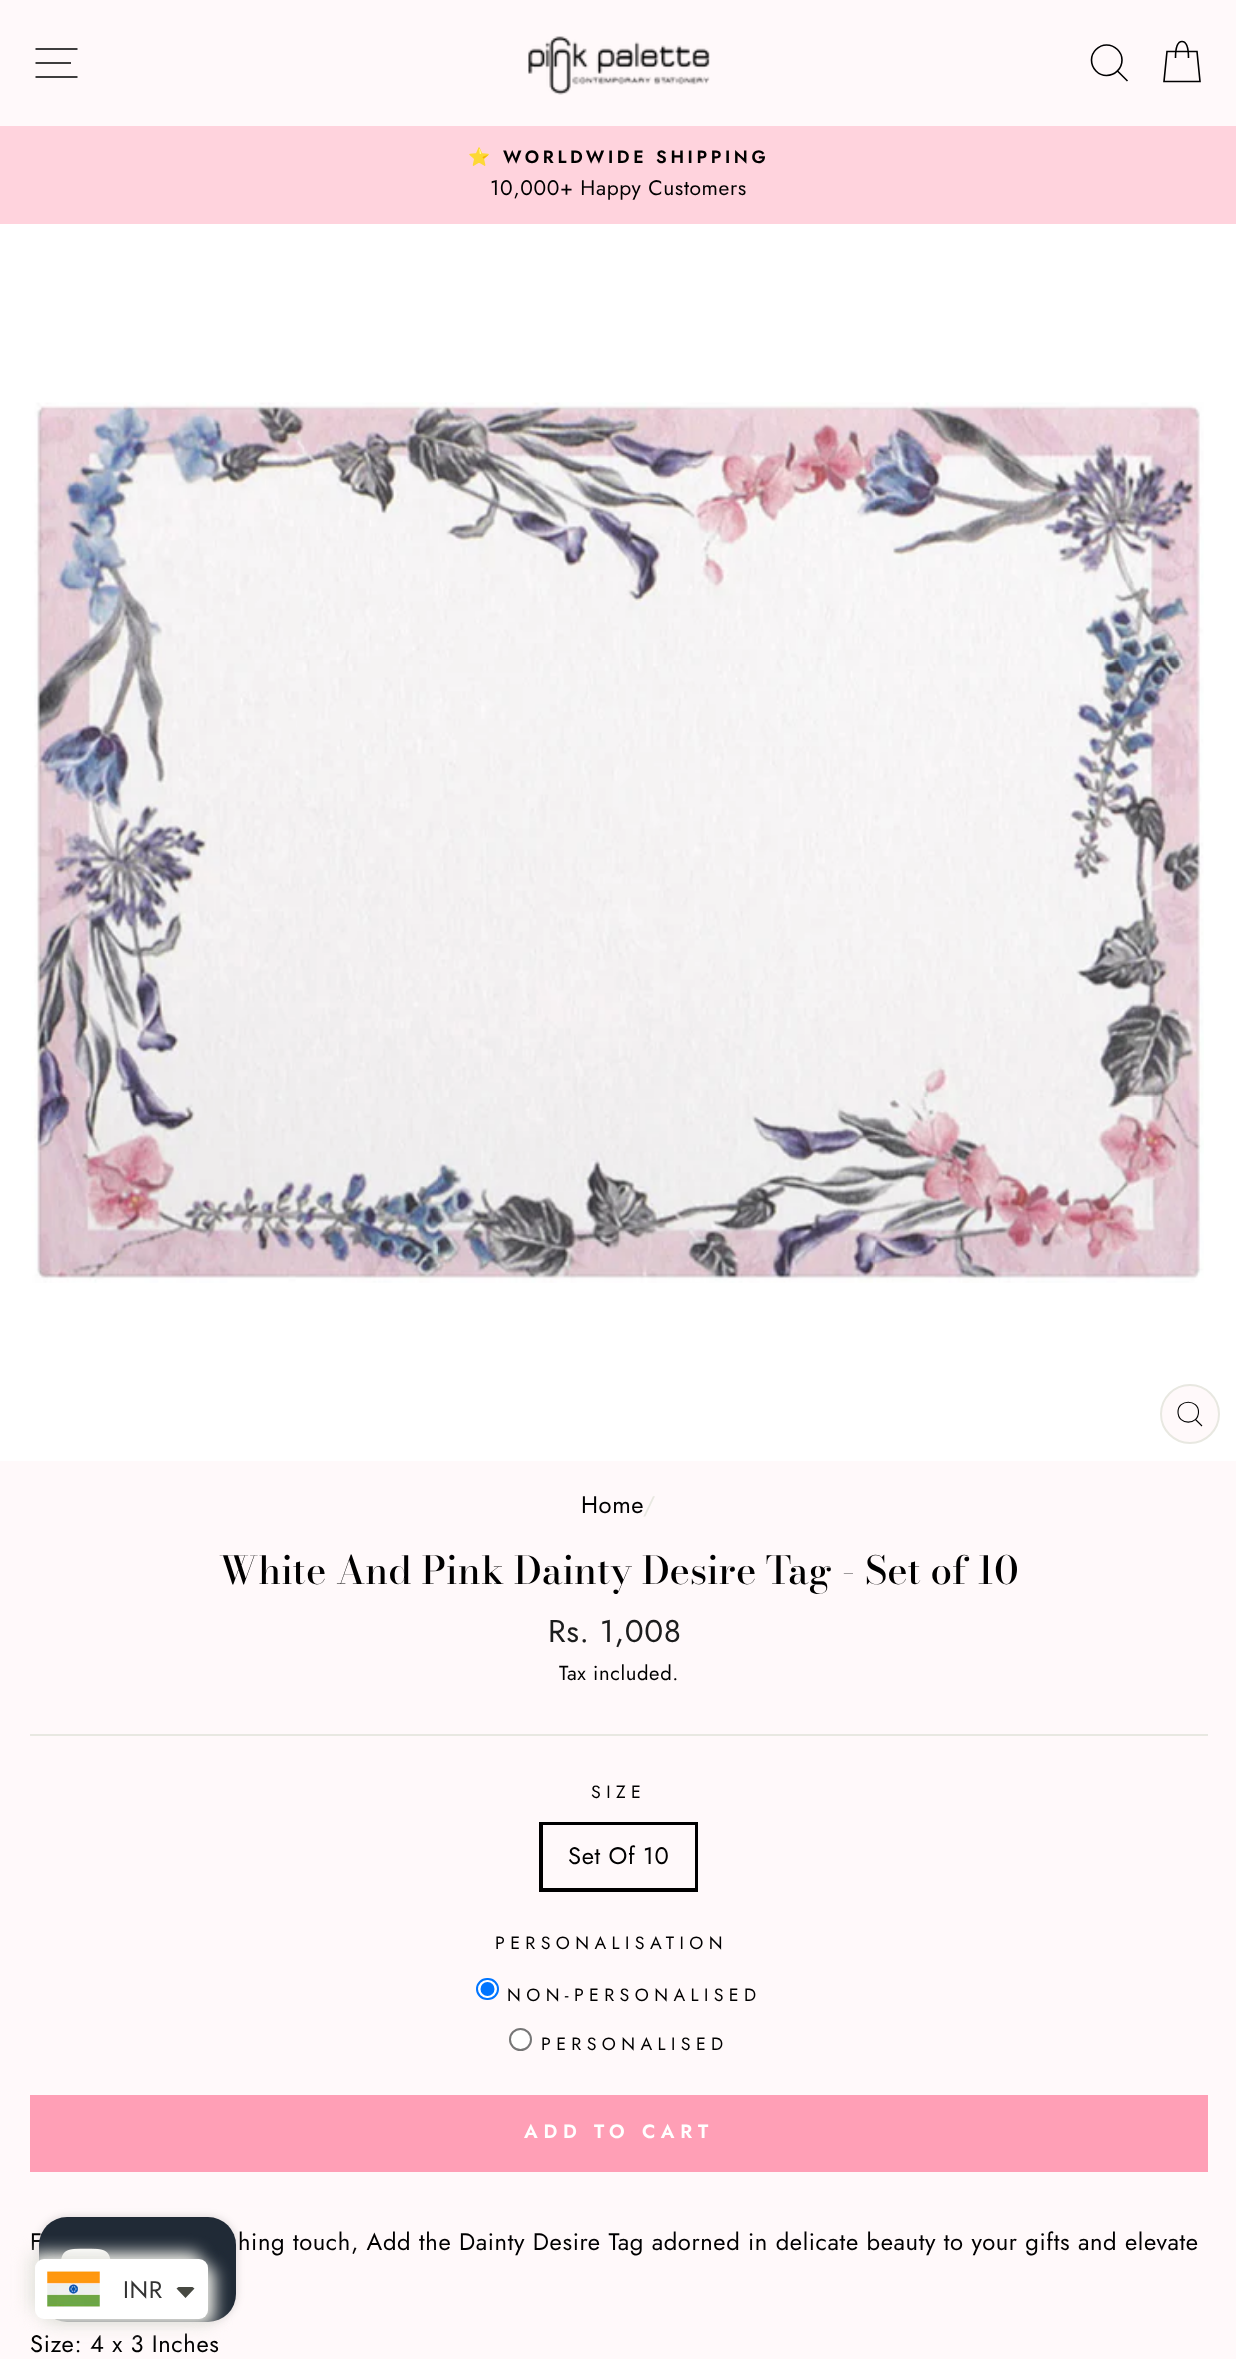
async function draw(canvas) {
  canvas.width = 1236
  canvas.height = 2359
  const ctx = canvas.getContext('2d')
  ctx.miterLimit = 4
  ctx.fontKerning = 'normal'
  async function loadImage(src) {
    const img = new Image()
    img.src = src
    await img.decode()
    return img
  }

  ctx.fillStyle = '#fff9fa'
  ctx.fillRect(0, 0, 1236, 2359)
  ctx.beginPath()
  ctx.moveTo(35.5, 49)
  ctx.lineTo(77.5, 49)
  ctx.moveTo(35.5, 63)
  ctx.lineTo(71, 63)
  ctx.moveTo(35.5, 77)
  ctx.lineTo(77.5, 77)
  ctx.strokeStyle = '#000'
  ctx.lineWidth = 1.6
  ctx.stroke()
  ctx.drawImage(await loadImage('image0.png'), 528, 36, 182, 59)
  ctx.beginPath()
  ctx.moveTo(1122, 60)
  ctx.bezierCurveTo(1122, 68.5, 1115, 75.5, 1106.5, 75.5)
  ctx.bezierCurveTo(1098.5, 75.5, 1091.5, 68.5, 1091.5, 60)
  ctx.bezierCurveTo(1091.5, 52, 1098.5, 45, 1106.5, 45)
  ctx.bezierCurveTo(1115, 45, 1122, 52, 1122, 60)
  ctx.closePath()
  ctx.moveTo(1127.5, 81)
  ctx.lineTo(1117.5, 71)
  ctx.stroke()
  ctx.beginPath()
  ctx.moveTo(1175.5, 58)
  ctx.bezierCurveTo(1175.5, 45, 1178.5, 41.5, 1182, 41.5)
  ctx.bezierCurveTo(1185.5, 41.5, 1188.5, 45, 1188.5, 58)
  ctx.moveTo(1167, 51.5)
  ctx.lineTo(1197, 51.5)
  ctx.lineTo(1200, 81.5)
  ctx.lineTo(1164, 81.5)
  ctx.closePath()
  ctx.stroke()
  ctx.fillStyle = '#ffd3dd'
  ctx.fillRect(0, 126, 1236, 98)
  ctx.letterSpacing = '3.6px'
  ctx.font = 'bold 17.8px Noto Color Emoji'
  ctx.fillStyle = '#000'
  ctx.fillText('⭐', 468, 163)
  ctx.font = '600 17.8px Jost'
  ctx.fillText('WORLDWIDE SHIPPING', 503, 163)
  ctx.letterSpacing = '0.6px'
  ctx.font = '21px Jost'
  ctx.fillText('10,000+ Happy Customers', 490, 195)
  ctx.fillStyle = '#fff'
  ctx.fillRect(0, 224, 1236, 1237)
  ctx.drawImage(await loadImage('image1.png'), 31, 402, 1173, 881)
  ctx.fillStyle = '#fff9fa'
  ctx.beginPath()
  ctx.arc(1190, 1414, 29, 0, 2 * Math.PI)
  ctx.fill()
  ctx.strokeStyle = '#e8e8e1'
  ctx.lineWidth = 2
  ctx.stroke()
  ctx.beginPath()
  ctx.moveTo(1198.5, 1412)
  ctx.bezierCurveTo(1198.5, 1425.5, 1178, 1425.5, 1178, 1412)
  ctx.bezierCurveTo(1178, 1399, 1198.5, 1399, 1198.5, 1412)
  ctx.closePath()
  ctx.moveTo(1202, 1426)
  ctx.lineTo(1195.5, 1419.5)
  ctx.strokeStyle = '#000'
  ctx.lineWidth = 1.1
  ctx.stroke()
  ctx.font = '23.8px Jost'
  ctx.fillStyle = '#000'
  ctx.fillText('Home', 581, 1513)
  ctx.fillStyle = '#e8e8e1'
  ctx.fillText('/', 643, 1513)
  ctx.letterSpacing = '0px'
  ctx.font = '500 38.5px Bodoni Moda'
  ctx.fillStyle = '#000'
  ctx.fillText('White And Pink Dainty Desire Tag - Set of 10', 219, 1584)
  ctx.letterSpacing = '0.6px'
  ctx.font = '31.5px Jost'
  ctx.fillStyle = '#1c1d1d'
  ctx.fillText('Rs. 1,008', 548, 1642)
  ctx.font = '20.25px Jost'
  ctx.fillStyle = '#000'
  ctx.fillText('Tax included.', 559, 1680)
  ctx.fillStyle = '#e8e8e1'
  ctx.fillRect(30, 1734, 1178, 2)
  ctx.letterSpacing = '5.4px'
  ctx.font = '17.8px Jost'
  ctx.fillStyle = '#000'
  ctx.fillText('SIZE', 591, 1798)
  ctx.lineWidth = 4
  ctx.strokeRect(541, 1824, 155, 66)
  ctx.fillStyle = '#fff9fa'
  ctx.fillRect(543, 1825, 152, 63)
  ctx.letterSpacing = '0.6px'
  ctx.font = '23.8px Jost'
  ctx.fillStyle = '#000'
  ctx.fillText('Set Of 10', 568, 1864)
  ctx.letterSpacing = '5.4px'
  ctx.font = '17.8px Jost'
  ctx.fillText('PERSONALISATION', 495, 1949)
  ctx.fillStyle = '#fff'
  ctx.beginPath()
  ctx.roundRect(477, 1979, 21, 20, 10)
  ctx.fill()
  ctx.strokeStyle = '#0075ff'
  ctx.lineWidth = 2
  ctx.stroke()
  ctx.fillStyle = '#0075ff'
  ctx.beginPath()
  ctx.arc(487.5, 1989, 7, 0, 2 * Math.PI)
  ctx.fill()
  ctx.fillStyle = '#000'
  ctx.fillText('NON-PERSONALISED', 507, 2001)
  ctx.fillStyle = '#fff'
  ctx.beginPath()
  ctx.arc(520.5, 2039.5, 10.5, 0, 2 * Math.PI)
  ctx.fill()
  ctx.strokeStyle = '#767676'
  ctx.stroke()
  ctx.fillStyle = '#000'
  ctx.fillText('PERSONALISED', 541, 2050)
  ctx.fillStyle = '#ff9fb6'
  ctx.fillRect(30, 2095, 1178, 77)
  ctx.letterSpacing = '5.75px'
  ctx.font = '600 19.25px Jost'
  ctx.fillStyle = '#fff'
  ctx.fillText('ADD TO CART', 524, 2138)
  ctx.letterSpacing = '0.6px'
  ctx.font = '23.8px Jost'
  ctx.fillStyle = '#000'
  ctx.fillText('F', 30, 2250)
  ctx.fillText('hing touch, Add the Dainty Desire Tag adorned in delicate beauty to your gifts and elevate', 238, 2250)
  ctx.fillText('Size: 4 x 3 Inches', 30, 2352)
  ctx.fillStyle = '#00000026'
  ctx.filter = 'blur(4.5px)'
  ctx.beginPath()
  ctx.roundRect(39, 2217, 197, 105, 28)
  ctx.fill()
  ctx.filter = 'none'
  ctx.fillStyle = '#202a36'
  ctx.beginPath()
  ctx.roundRect(39, 2217, 197, 105, 28)
  ctx.fill()
  ctx.drawImage(await loadImage('image2.png'), 61, 2248, 50, 11)
  ctx.fillStyle = '#e8e8e2'
  ctx.filter = 'blur(8px)'
  ctx.beginPath()
  ctx.roundRect(28, 2252, 173, 60, 9)
  ctx.fill()
  ctx.filter = 'none'
  ctx.filter = 'blur(8px)'
  ctx.beginPath()
  ctx.roundRect(42, 2266, 173, 60, 9)
  ctx.fill()
  ctx.filter = 'none'
  ctx.fillStyle = '#fff'
  ctx.beginPath()
  ctx.roundRect(35, 2259, 173, 60, 9)
  ctx.fill()
  ctx.drawImage(await loadImage('image3.png'), 47, 2271, 53, 36)
  ctx.font = '24px Jost'
  ctx.fillStyle = '#333'
  ctx.fillText('INR', 123, 2298)
  ctx.fillStyle = '#474942'
  ctx.beginPath()
  ctx.moveTo(176.5, 2288.5)
  ctx.bezierCurveTo(177, 2288, 178, 2287.5, 178.5, 2287)
  ctx.lineTo(192.5, 2287)
  ctx.bezierCurveTo(193, 2287.5, 194, 2288, 194.5, 2288.5)
  ctx.lineTo(185.5, 2298)
  ctx.closePath()
  ctx.fill()
}

draw(document.querySelector('canvas'))
